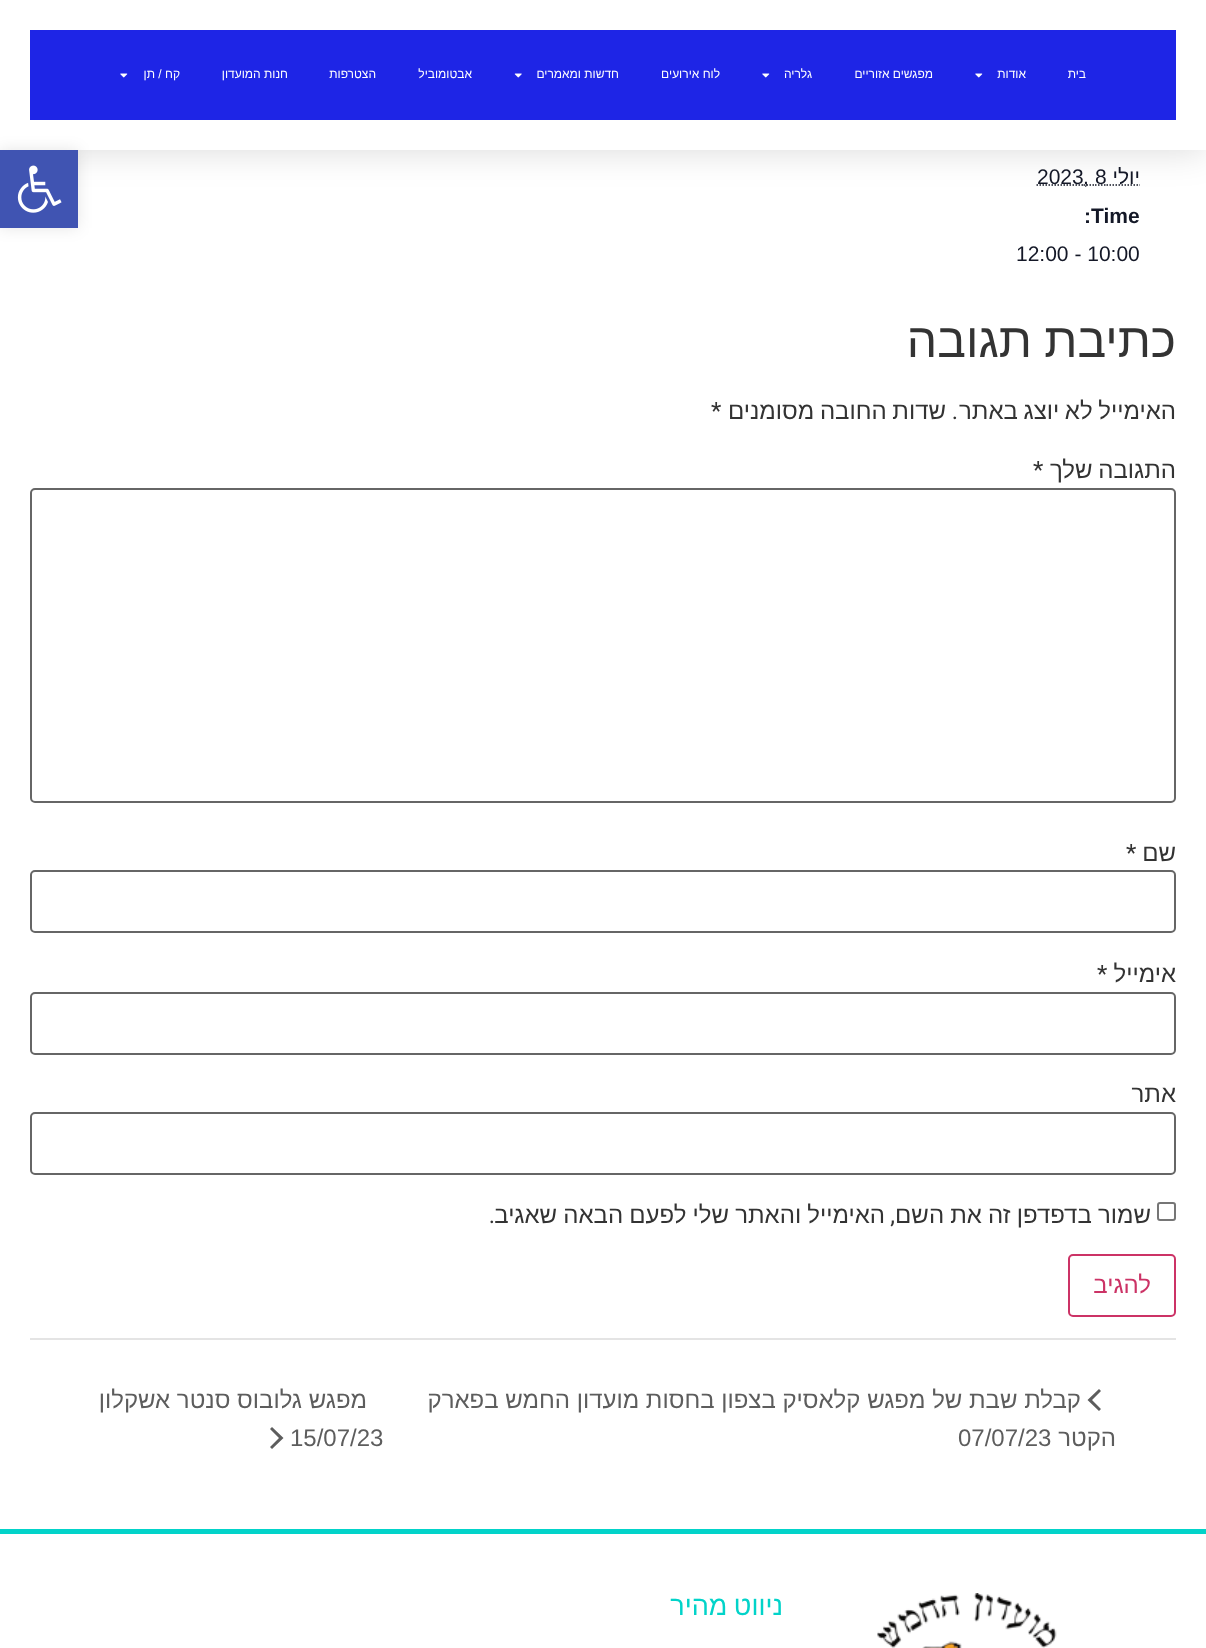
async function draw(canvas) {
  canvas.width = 1206
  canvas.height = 1648
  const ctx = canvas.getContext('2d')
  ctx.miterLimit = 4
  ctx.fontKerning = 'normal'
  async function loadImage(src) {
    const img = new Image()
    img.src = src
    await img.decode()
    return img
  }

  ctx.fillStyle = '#fff'
  ctx.fillRect(0, 0, 1206, 1648)
  ctx.beginPath()
  ctx.moveTo(1106.5, 185)
  ctx.lineTo(1140, 185)
  ctx.strokeStyle = '#141827'
  ctx.lineWidth = 1.5
  ctx.setLineDash([1.5, 1.5])
  ctx.stroke()
  ctx.beginPath()
  ctx.moveTo(1036.5, 185)
  ctx.lineTo(1083.5, 185)
  ctx.stroke()
  ctx.beginPath()
  ctx.moveTo(1083.5, 185)
  ctx.lineTo(1095, 185)
  ctx.stroke()
  ctx.beginPath()
  ctx.moveTo(1095, 185)
  ctx.lineTo(1106.5, 185)
  ctx.stroke()
  ctx.fillStyle = '#00000026'
  ctx.filter = 'blur(18px)'
  ctx.beginPath()
  ctx.rect(0, 0, 1206, 150)
  ctx.fill()
  ctx.filter = 'none'
  ctx.fillStyle = '#fff'
  ctx.fillRect(0, 0, 1206, 150)
  ctx.fillStyle = '#1e25e6'
  ctx.fillRect(30, 30, 1146, 90)
  ctx.direction = 'rtl'
  ctx.font = '12px Liberation Sans'
  ctx.fillStyle = '#fff'
  ctx.fillText('בית', 1086, 78)
  ctx.fillText('אודות', 1026, 78)
  ctx.drawImage(await loadImage('image0.png'), 975, 73, 8, 5)
  ctx.fillText('מפגשים אזוריים', 933, 78)
  ctx.fillText('גלריה', 812, 78)
  ctx.drawImage(await loadImage('image0.png'), 762, 73, 8, 5)
  ctx.fillText('לוח אירועים', 720, 78)
  ctx.fillText('חדשות ומאמרים', 619, 78)
  ctx.drawImage(await loadImage('image1.png'), 514, 73, 8, 5)
  ctx.fillText('אבטומוביל', 472, 78)
  ctx.fillText('הצטרפות', 376, 78)
  ctx.fillText('חנות המועדון', 288, 78)
  ctx.fillText('קח / תן', 180, 78)
  ctx.drawImage(await loadImage('image0.png'), 120, 73, 8, 5)
  ctx.font = '21px Liberation Sans'
  ctx.fillStyle = '#141827'
  ctx.fillText('יולי', 1140, 184)
  ctx.direction = 'ltr'
  ctx.fillText('8', 1095, 184)
  ctx.fillText(',', 1083, 184)
  ctx.fillText('2023', 1037, 184)
  ctx.font = 'bold 21px Liberation Sans'
  ctx.fillText(':Time', 1084, 223)
  ctx.font = '21px Liberation Sans'
  ctx.fillText('12:00 - 10:00', 1016, 261)
  ctx.wordSpacing = '-1px'
  ctx.direction = 'rtl'
  ctx.font = '48px Liberation Sans'
  ctx.fillStyle = '#333'
  ctx.fillText('כתיבת תגובה', 1176, 357)
  ctx.font = '24px Liberation Sans'
  ctx.fillText('האימייל לא יוצג באתר', 1176, 419)
  ctx.wordSpacing = '0px'
  ctx.font = '24px Roboto'
  ctx.fillText('.', 958, 419)
  ctx.wordSpacing = '-1px'
  ctx.font = '24px Liberation Sans'
  ctx.fillText('שדות החובה מסומנים', 946, 419)
  ctx.wordSpacing = '0px'
  ctx.direction = 'ltr'
  ctx.font = '24px Roboto'
  ctx.fillText('*', 711, 419)
  ctx.wordSpacing = '-1px'
  ctx.direction = 'rtl'
  ctx.font = '24px Liberation Sans'
  ctx.fillText('התגובה שלך', 1176, 478)
  ctx.wordSpacing = '0px'
  ctx.direction = 'ltr'
  ctx.font = '24px Roboto'
  ctx.fillText('*', 1033, 478)
  ctx.beginPath()
  ctx.roundRect(31, 489, 1144, 313, 4)
  ctx.strokeStyle = '#666'
  ctx.lineWidth = 2
  ctx.setLineDash([])
  ctx.stroke()
  ctx.direction = 'rtl'
  ctx.font = '24px Liberation Sans'
  ctx.fillText('שם', 1176, 861)
  ctx.direction = 'ltr'
  ctx.font = '24px Roboto'
  ctx.fillText('*', 1126, 861)
  ctx.beginPath()
  ctx.roundRect(31, 871, 1144, 61, 4)
  ctx.stroke()
  ctx.direction = 'rtl'
  ctx.font = '24px Liberation Sans'
  ctx.fillText('אימייל', 1176, 982)
  ctx.direction = 'ltr'
  ctx.font = '24px Roboto'
  ctx.fillText('*', 1097, 982)
  ctx.beginPath()
  ctx.roundRect(31, 993, 1144, 61, 4)
  ctx.stroke()
  ctx.direction = 'rtl'
  ctx.font = '24px Liberation Sans'
  ctx.fillText('אתר', 1176, 1102)
  ctx.beginPath()
  ctx.roundRect(31, 1113, 1144, 61, 4)
  ctx.stroke()
  ctx.beginPath()
  ctx.roundRect(1158, 1203, 17, 17, 2)
  ctx.strokeStyle = '#767676'
  ctx.stroke()
  ctx.wordSpacing = '-0.5px'
  ctx.fillText('שמור בדפדפן זה את השם', 1151, 1223)
  ctx.wordSpacing = '0px'
  ctx.font = '24px Roboto'
  ctx.fillText(',', 895, 1223)
  ctx.wordSpacing = '-0.5px'
  ctx.font = '24px Liberation Sans'
  ctx.fillText('האימייל והאתר שלי לפעם הבאה שאגיב', 885, 1223)
  ctx.wordSpacing = '0px'
  ctx.font = '24px Roboto'
  ctx.fillText('.', 495, 1223)
  ctx.beginPath()
  ctx.roundRect(1069, 1255, 106, 61, 4)
  ctx.strokeStyle = '#c36'
  ctx.stroke()
  ctx.font = '24px Liberation Sans'
  ctx.fillStyle = '#c36'
  ctx.fillText('להגיב', 1151, 1293)
  ctx.fillStyle = '#e4e4e4'
  ctx.fillRect(30, 1338, 1146, 2)
  ctx.fillStyle = '#5d5d5d'
  ctx.beginPath()
  ctx.moveTo(1101, 1409)
  ctx.lineTo(1099, 1411)
  ctx.lineTo(1087.5, 1400)
  ctx.lineTo(1099, 1389)
  ctx.lineTo(1101, 1391)
  ctx.lineTo(1092, 1400)
  ctx.closePath()
  ctx.fill()
  ctx.fillText('קבלת שבת של מפגש קלאסיק בצפון בחסות מועדון החמש בפארק', 1081, 1408)
  ctx.fillText('הקטר', 1116, 1446)
  ctx.direction = 'ltr'
  ctx.fillText('07/07/23', 958, 1446)
  ctx.direction = 'rtl'
  ctx.fillText('מפגש גלובוס סנטר אשקלון', 367, 1408)
  ctx.direction = 'ltr'
  ctx.fillText('15/07/23', 290, 1446)
  ctx.beginPath()
  ctx.moveTo(270, 1429)
  ctx.lineTo(272, 1427)
  ctx.lineTo(283.5, 1438)
  ctx.lineTo(272, 1449)
  ctx.lineTo(270, 1447)
  ctx.lineTo(279, 1438)
  ctx.closePath()
  ctx.fill()
  ctx.fillStyle = '#0000001a'
  ctx.filter = 'blur(7.5px)'
  ctx.beginPath()
  ctx.rect(0, 150, 78, 78)
  ctx.fill()
  ctx.filter = 'none'
  ctx.fillStyle = '#4054b2'
  ctx.fillRect(0, 150, 78, 78)
  ctx.drawImage(await loadImage('image2.png'), 17, 165, 45, 48)
  ctx.fillStyle = '#02d3c9'
  ctx.fillRect(0, 1529, 1206, 5)
  ctx.drawImage(await loadImage('image3.png'), 877, 1593, 180, 55)
  ctx.wordSpacing = '-1px'
  ctx.direction = 'rtl'
  ctx.font = '27px Liberation Sans'
  ctx.fillText('ניווט מהיר', 783, 1615)
}

draw(document.querySelector('canvas'))
